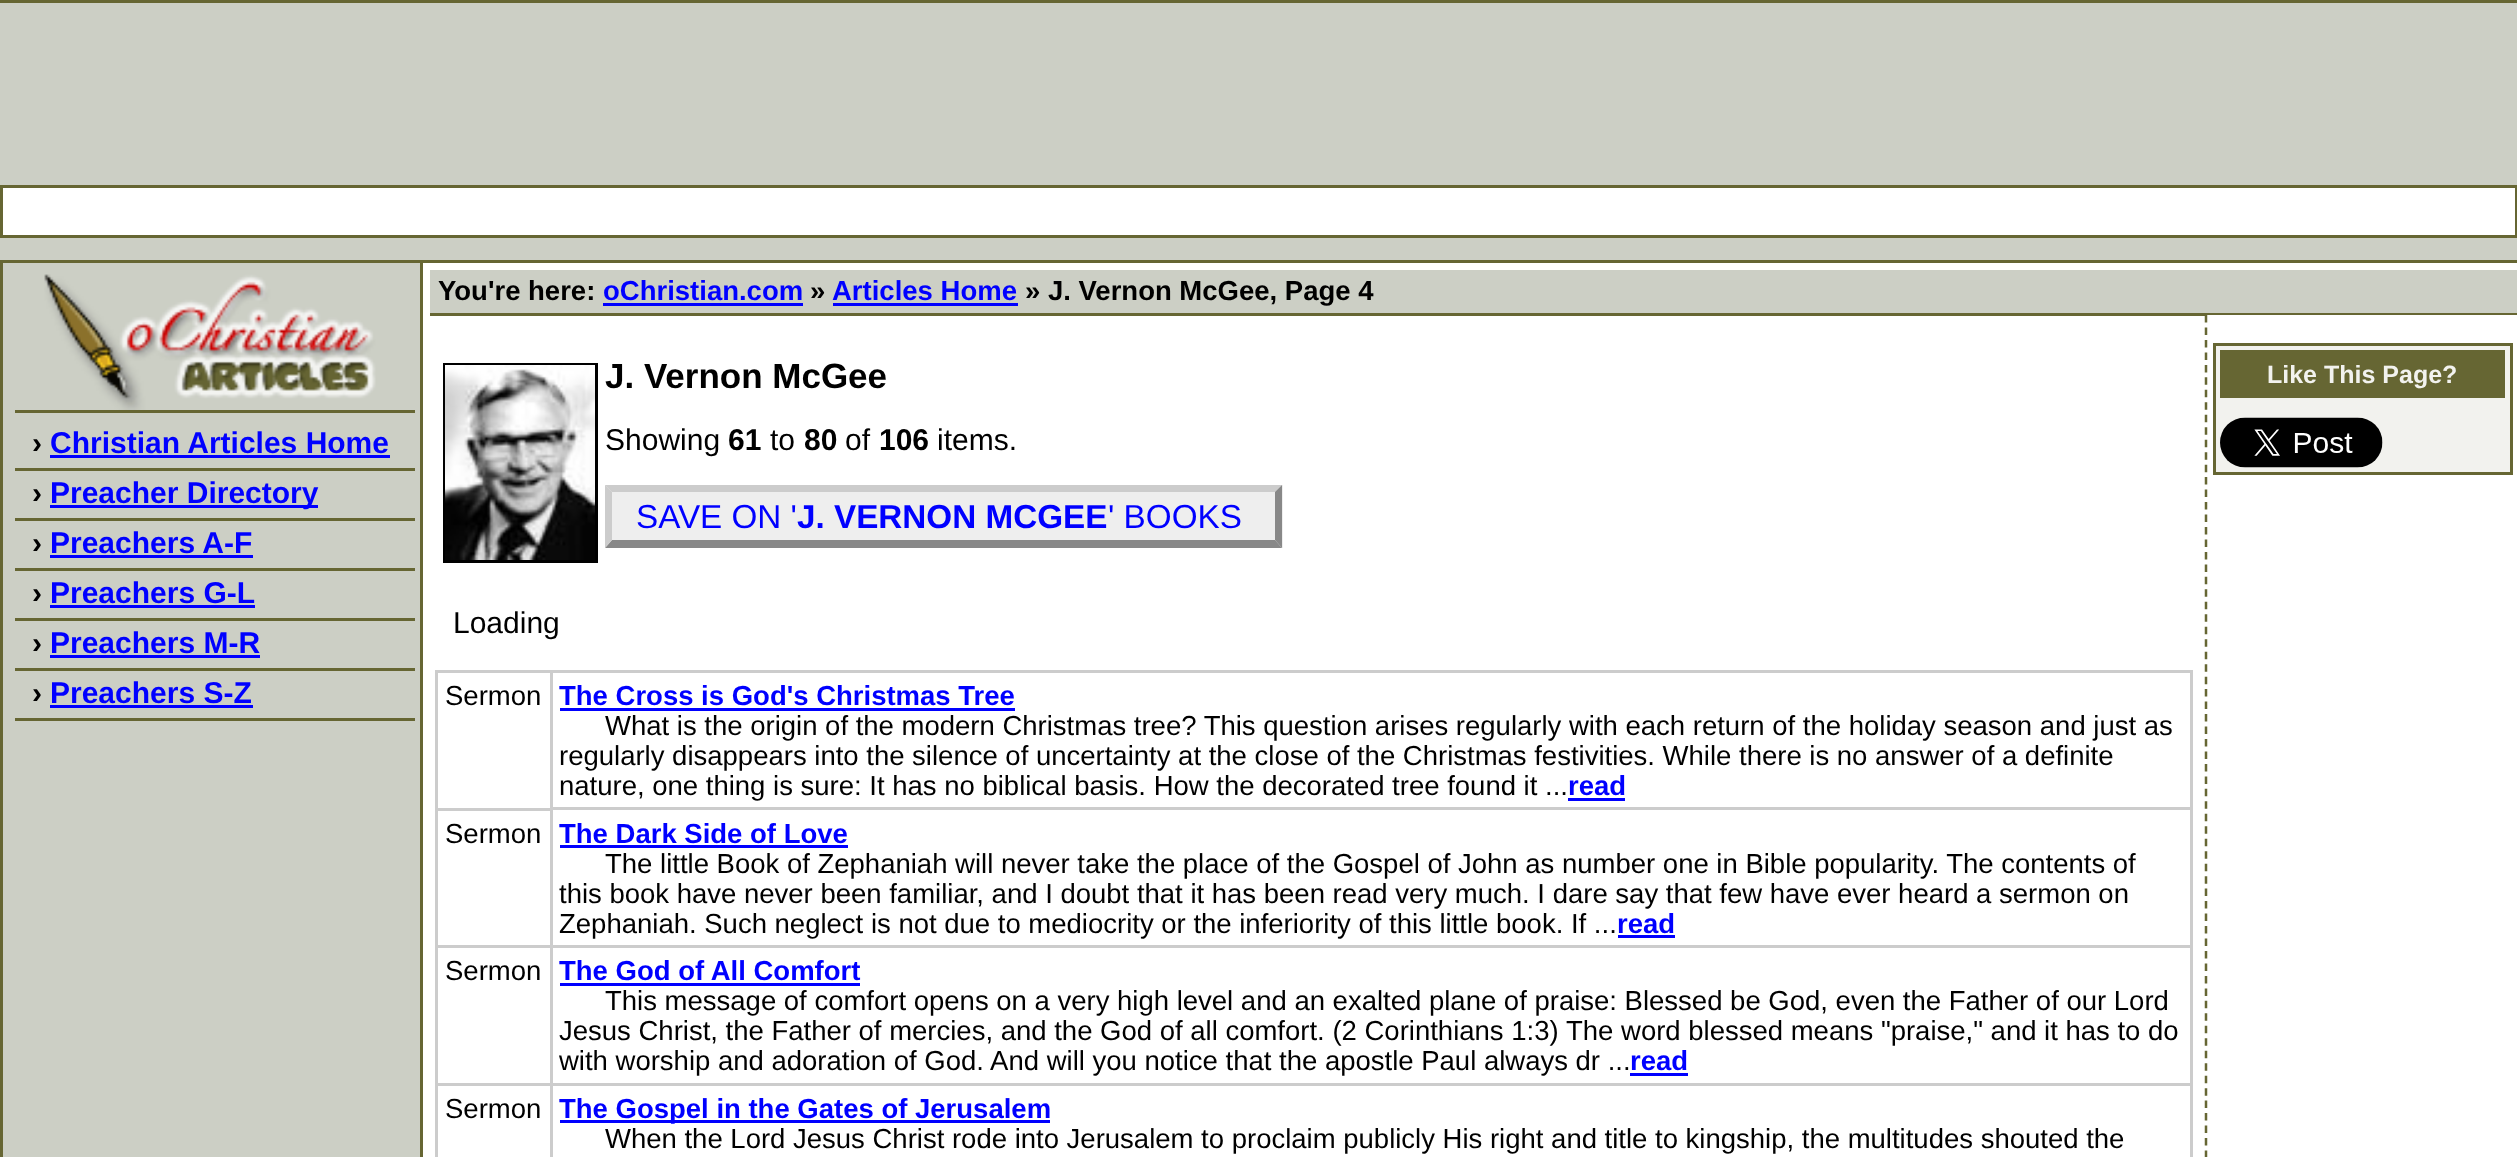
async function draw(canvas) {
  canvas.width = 2517
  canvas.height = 1157
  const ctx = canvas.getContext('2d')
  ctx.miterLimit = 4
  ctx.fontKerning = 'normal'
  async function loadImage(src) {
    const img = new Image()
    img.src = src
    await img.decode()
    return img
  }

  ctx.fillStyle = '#fff'
  ctx.fillRect(0, 0, 2517, 1157)
  ctx.fillStyle = '#cccfc5'
  ctx.fillRect(0, 3, 2517, 257)
  ctx.fillStyle = '#663'
  ctx.fillRect(0, 0, 2517, 3)
  ctx.fillRect(0, 260, 2517, 3)
  ctx.fillStyle = '#fff'
  ctx.beginPath()
  ctx.rect(1.5, 186.5, 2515, 50)
  ctx.fill()
  ctx.strokeStyle = '#663'
  ctx.lineWidth = 3
  ctx.stroke()
  ctx.fillStyle = '#cccfc5'
  ctx.fillRect(3, 263, 417, 894)
  ctx.fillStyle = '#663'
  ctx.fillRect(420, 263, 3, 894)
  ctx.fillRect(0, 263, 3, 894)
  ctx.drawImage(await loadImage('image0.png'), 44, 274, 332, 136)
  ctx.fillRect(15, 410, 400, 3)
  ctx.fillRect(15, 468, 400, 3)
  ctx.font = 'bold 30px Liberation Sans'
  ctx.fillStyle = '#000'
  ctx.fillText('›', 32, 453)
  ctx.fillStyle = '#00f'
  ctx.fillText('Christian Articles Home', 50, 453)
  ctx.fillRect(50, 455, 340, 3)
  ctx.fillStyle = '#663'
  ctx.fillRect(15, 518, 400, 3)
  ctx.fillStyle = '#000'
  ctx.fillText('›', 32, 503)
  ctx.fillStyle = '#00f'
  ctx.fillRect(50, 505, 268, 3)
  ctx.fillText('Preacher Directory', 50, 503)
  ctx.fillStyle = '#663'
  ctx.fillRect(15, 568, 400, 3)
  ctx.fillStyle = '#000'
  ctx.fillText('›', 32, 553)
  ctx.fillStyle = '#00f'
  ctx.fillText('Preachers A-F', 50, 553)
  ctx.fillRect(50, 555, 203, 3)
  ctx.fillStyle = '#663'
  ctx.fillRect(15, 618, 400, 3)
  ctx.fillStyle = '#000'
  ctx.fillText('›', 32, 603)
  ctx.fillStyle = '#00f'
  ctx.fillText('Preachers G-L', 50, 603)
  ctx.fillRect(50, 605, 205, 3)
  ctx.fillStyle = '#663'
  ctx.fillRect(15, 668, 400, 3)
  ctx.fillStyle = '#000'
  ctx.fillText('›', 32, 653)
  ctx.fillStyle = '#00f'
  ctx.fillText('Preachers M-R', 50, 653)
  ctx.fillRect(50, 655, 210, 3)
  ctx.fillStyle = '#663'
  ctx.fillRect(15, 718, 400, 3)
  ctx.fillStyle = '#000'
  ctx.fillText('›', 32, 703)
  ctx.fillStyle = '#00f'
  ctx.fillText('Preachers S-Z', 50, 703)
  ctx.fillRect(50, 705, 203, 3)
  ctx.fillStyle = '#663'
  ctx.fillRect(430, 313, 2087, 3)
  ctx.fillStyle = '#cccfc5'
  ctx.fillRect(430, 270, 2087, 43)
  ctx.font = 'bold 27.5px Liberation Sans'
  ctx.fillStyle = '#000'
  ctx.fillText('You\'re here:', 438, 300)
  ctx.fillStyle = '#00f'
  ctx.fillText('oChristian.com', 603, 300)
  ctx.fillRect(603, 303, 200, 3)
  ctx.fillStyle = '#000'
  ctx.fillText('»', 810, 300)
  ctx.fillStyle = '#00f'
  ctx.fillText('Articles Home', 832, 300)
  ctx.fillRect(833, 303, 185, 3)
  ctx.fillStyle = '#000'
  ctx.fillText('» J. Vernon McGee, Page 4', 1025, 300)
  ctx.strokeStyle = '#000'
  ctx.strokeRect(444.5, 364.5, 152, 197)
  ctx.drawImage(await loadImage('image1.png'), 445, 365, 150, 195)
  ctx.font = 'bold 35px Liberation Sans'
  ctx.fillText('J. Vernon McGee', 605, 388)
  ctx.font = '30px Liberation Sans'
  ctx.fillText('Showing', 605, 450)
  ctx.font = 'bold 30px Liberation Sans'
  ctx.fillText('61', 728, 450)
  ctx.font = '30px Liberation Sans'
  ctx.fillText('to', 770, 450)
  ctx.font = 'bold 30px Liberation Sans'
  ctx.fillText('80', 804, 450)
  ctx.font = '30px Liberation Sans'
  ctx.fillText('of', 845, 450)
  ctx.font = 'bold 30px Liberation Sans'
  ctx.fillText('106', 879, 450)
  ctx.font = '30px Liberation Sans'
  ctx.fillText('items.', 937, 450)
  ctx.fillStyle = '#eee'
  ctx.fillRect(605, 485, 678, 63)
  ctx.fillStyle = '#ccc'
  ctx.beginPath()
  ctx.moveTo(605, 485)
  ctx.lineTo(1282, 485)
  ctx.lineTo(1275, 492)
  ctx.lineTo(612, 492)
  ctx.closePath()
  ctx.fill()
  ctx.fillStyle = '#888'
  ctx.beginPath()
  ctx.moveTo(1282, 485)
  ctx.lineTo(1282, 548)
  ctx.lineTo(1275, 540)
  ctx.lineTo(1275, 492)
  ctx.closePath()
  ctx.fill()
  ctx.beginPath()
  ctx.moveTo(1282, 548)
  ctx.lineTo(605, 548)
  ctx.lineTo(612, 540)
  ctx.lineTo(1275, 540)
  ctx.closePath()
  ctx.fill()
  ctx.fillStyle = '#ccc'
  ctx.beginPath()
  ctx.moveTo(605, 548)
  ctx.lineTo(605, 485)
  ctx.lineTo(612, 492)
  ctx.lineTo(612, 540)
  ctx.closePath()
  ctx.fill()
  ctx.font = '33.25px Liberation Sans'
  ctx.fillStyle = '#00f'
  ctx.fillText('SAVE ON \'', 636, 528)
  ctx.font = 'bold 33.25px Liberation Sans'
  ctx.fillText('J. VERNON MCGEE', 797, 528)
  ctx.font = '33.25px Liberation Sans'
  ctx.fillText('\' BOOKS', 1108, 528)
  ctx.font = '30px Liberation Sans'
  ctx.fillStyle = '#000'
  ctx.fillText('Loading', 453, 633)
  ctx.fillStyle = '#ccc'
  ctx.fillRect(435, 670, 115, 3)
  ctx.fillRect(435, 808, 115, 3)
  ctx.fillRect(435, 670, 3, 140)
  ctx.font = '27.5px Liberation Sans'
  ctx.fillStyle = '#000'
  ctx.fillText('Sermon', 445, 705)
  ctx.strokeStyle = '#ccc'
  ctx.strokeRect(551.5, 671.5, 1640, 137)
  ctx.font = 'bold 27.5px Liberation Sans'
  ctx.fillStyle = '#00f'
  ctx.fillText('The Cross is God\'s Christmas Tree', 559, 705)
  ctx.fillRect(560, 708, 455, 3)
  ctx.font = '27.5px Liberation Sans'
  ctx.fillStyle = '#000'
  ctx.fillText('What is the origin of the modern Christmas tree? This question arises regularly with each return of the holiday season and just as', 605, 735)
  ctx.fillText('regularly disappears into the silence of uncertainty at the close of the Christmas festivities. While there is no answer of a definite', 559, 765)
  ctx.fillText('nature, one thing is sure: It has no biblical basis. How the decorated tree found it ...', 559, 795)
  ctx.font = 'bold 27.5px Liberation Sans'
  ctx.fillStyle = '#00f'
  ctx.fillText('read', 1568, 795)
  ctx.fillRect(1568, 798, 57, 3)
  ctx.fillStyle = '#ccc'
  ctx.fillRect(435, 945, 115, 3)
  ctx.fillRect(435, 810, 3, 138)
  ctx.font = '27.5px Liberation Sans'
  ctx.fillStyle = '#000'
  ctx.fillText('Sermon', 445, 843)
  ctx.fillStyle = '#ccc'
  ctx.fillRect(2190, 810, 3, 275)
  ctx.fillRect(550, 945, 1643, 3)
  ctx.fillRect(550, 810, 3, 138)
  ctx.font = 'bold 27.5px Liberation Sans'
  ctx.fillStyle = '#00f'
  ctx.fillText('The Dark Side of Love', 559, 843)
  ctx.fillRect(560, 845, 288, 3)
  ctx.font = '27.5px Liberation Sans'
  ctx.fillStyle = '#000'
  ctx.fillText('The little Book of Zephaniah will never take the place of the Gospel of John as number one in Bible popularity. The contents of', 605, 873)
  ctx.fillText('this book have never been familiar, and I doubt that it has been read very much. I dare say that few have ever heard a sermon on', 559, 903)
  ctx.fillText('Zephaniah. Such neglect is not due to mediocrity or the inferiority of this little book. If ...', 559, 933)
  ctx.font = 'bold 27.5px Liberation Sans'
  ctx.fillStyle = '#00f'
  ctx.fillText('read', 1617, 933)
  ctx.fillRect(1618, 935, 57, 3)
  ctx.fillStyle = '#ccc'
  ctx.fillRect(435, 1083, 1758, 3)
  ctx.fillRect(435, 948, 3, 209)
  ctx.font = '27.5px Liberation Sans'
  ctx.fillStyle = '#000'
  ctx.fillText('Sermon', 445, 980)
  ctx.fillStyle = '#ccc'
  ctx.fillRect(550, 948, 3, 209)
  ctx.font = 'bold 27.5px Liberation Sans'
  ctx.fillStyle = '#00f'
  ctx.fillText('The God of All Comfort', 559, 980)
  ctx.fillRect(560, 983, 300, 3)
  ctx.font = '27.5px Liberation Sans'
  ctx.fillStyle = '#000'
  ctx.fillText('This message of comfort opens on a very high level and an exalted plane of praise: Blessed be God, even the Father of our Lord', 605, 1010)
  ctx.fillText('Jesus Christ, the Father of mercies, and the God of all comfort. (2 Corinthians 1:3)', 559, 1040)
  ctx.fillText('The word blessed means "praise," and it has to do', 1566, 1040)
  ctx.fillText('with worship and adoration of God. And will you notice that the apostle Paul always dr ...', 559, 1070)
  ctx.font = 'bold 27.5px Liberation Sans'
  ctx.fillStyle = '#00f'
  ctx.fillText('read', 1630, 1070)
  ctx.fillRect(1630, 1073, 58, 3)
  ctx.font = '27.5px Liberation Sans'
  ctx.fillStyle = '#000'
  ctx.fillText('Sermon', 445, 1118)
  ctx.fillStyle = '#ccc'
  ctx.fillRect(2190, 1085, 3, 72)
  ctx.fillStyle = '#00f'
  ctx.fillRect(560, 1120, 490, 3)
  ctx.font = 'bold 27.5px Liberation Sans'
  ctx.fillText('The Gospel in the Gates of Jerusalem', 559, 1118)
  ctx.font = '27.5px Liberation Sans'
  ctx.fillStyle = '#000'
  ctx.fillText('When the Lord Jesus Christ rode into Jerusalem to proclaim publicly His right and title to kingship, the multitudes shouted the', 605, 1148)
  ctx.fillStyle = '#fff'
  ctx.fillRect(2205, 315, 312, 1)
  ctx.beginPath()
  ctx.moveTo(2206, 315)
  ctx.lineTo(2206, 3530)
  ctx.strokeStyle = '#663'
  ctx.lineWidth = 2.5
  ctx.setLineDash([7.5, 4.97])
  ctx.stroke()
  ctx.fillStyle = '#f2f2ee'
  ctx.beginPath()
  ctx.rect(2214.5, 344.5, 297, 129)
  ctx.fill()
  ctx.lineWidth = 3
  ctx.setLineDash([])
  ctx.stroke()
  ctx.fillStyle = '#663'
  ctx.fillRect(2220, 350, 285, 48)
  ctx.font = 'bold 25px Liberation Sans'
  ctx.fillStyle = '#f2f2ee'
  ctx.fillText('Like This Page?', 2267, 383)
  ctx.drawImage(await loadImage('image2.png'), 2220, 417, 163, 51)
}

draw(document.querySelector('canvas'))
